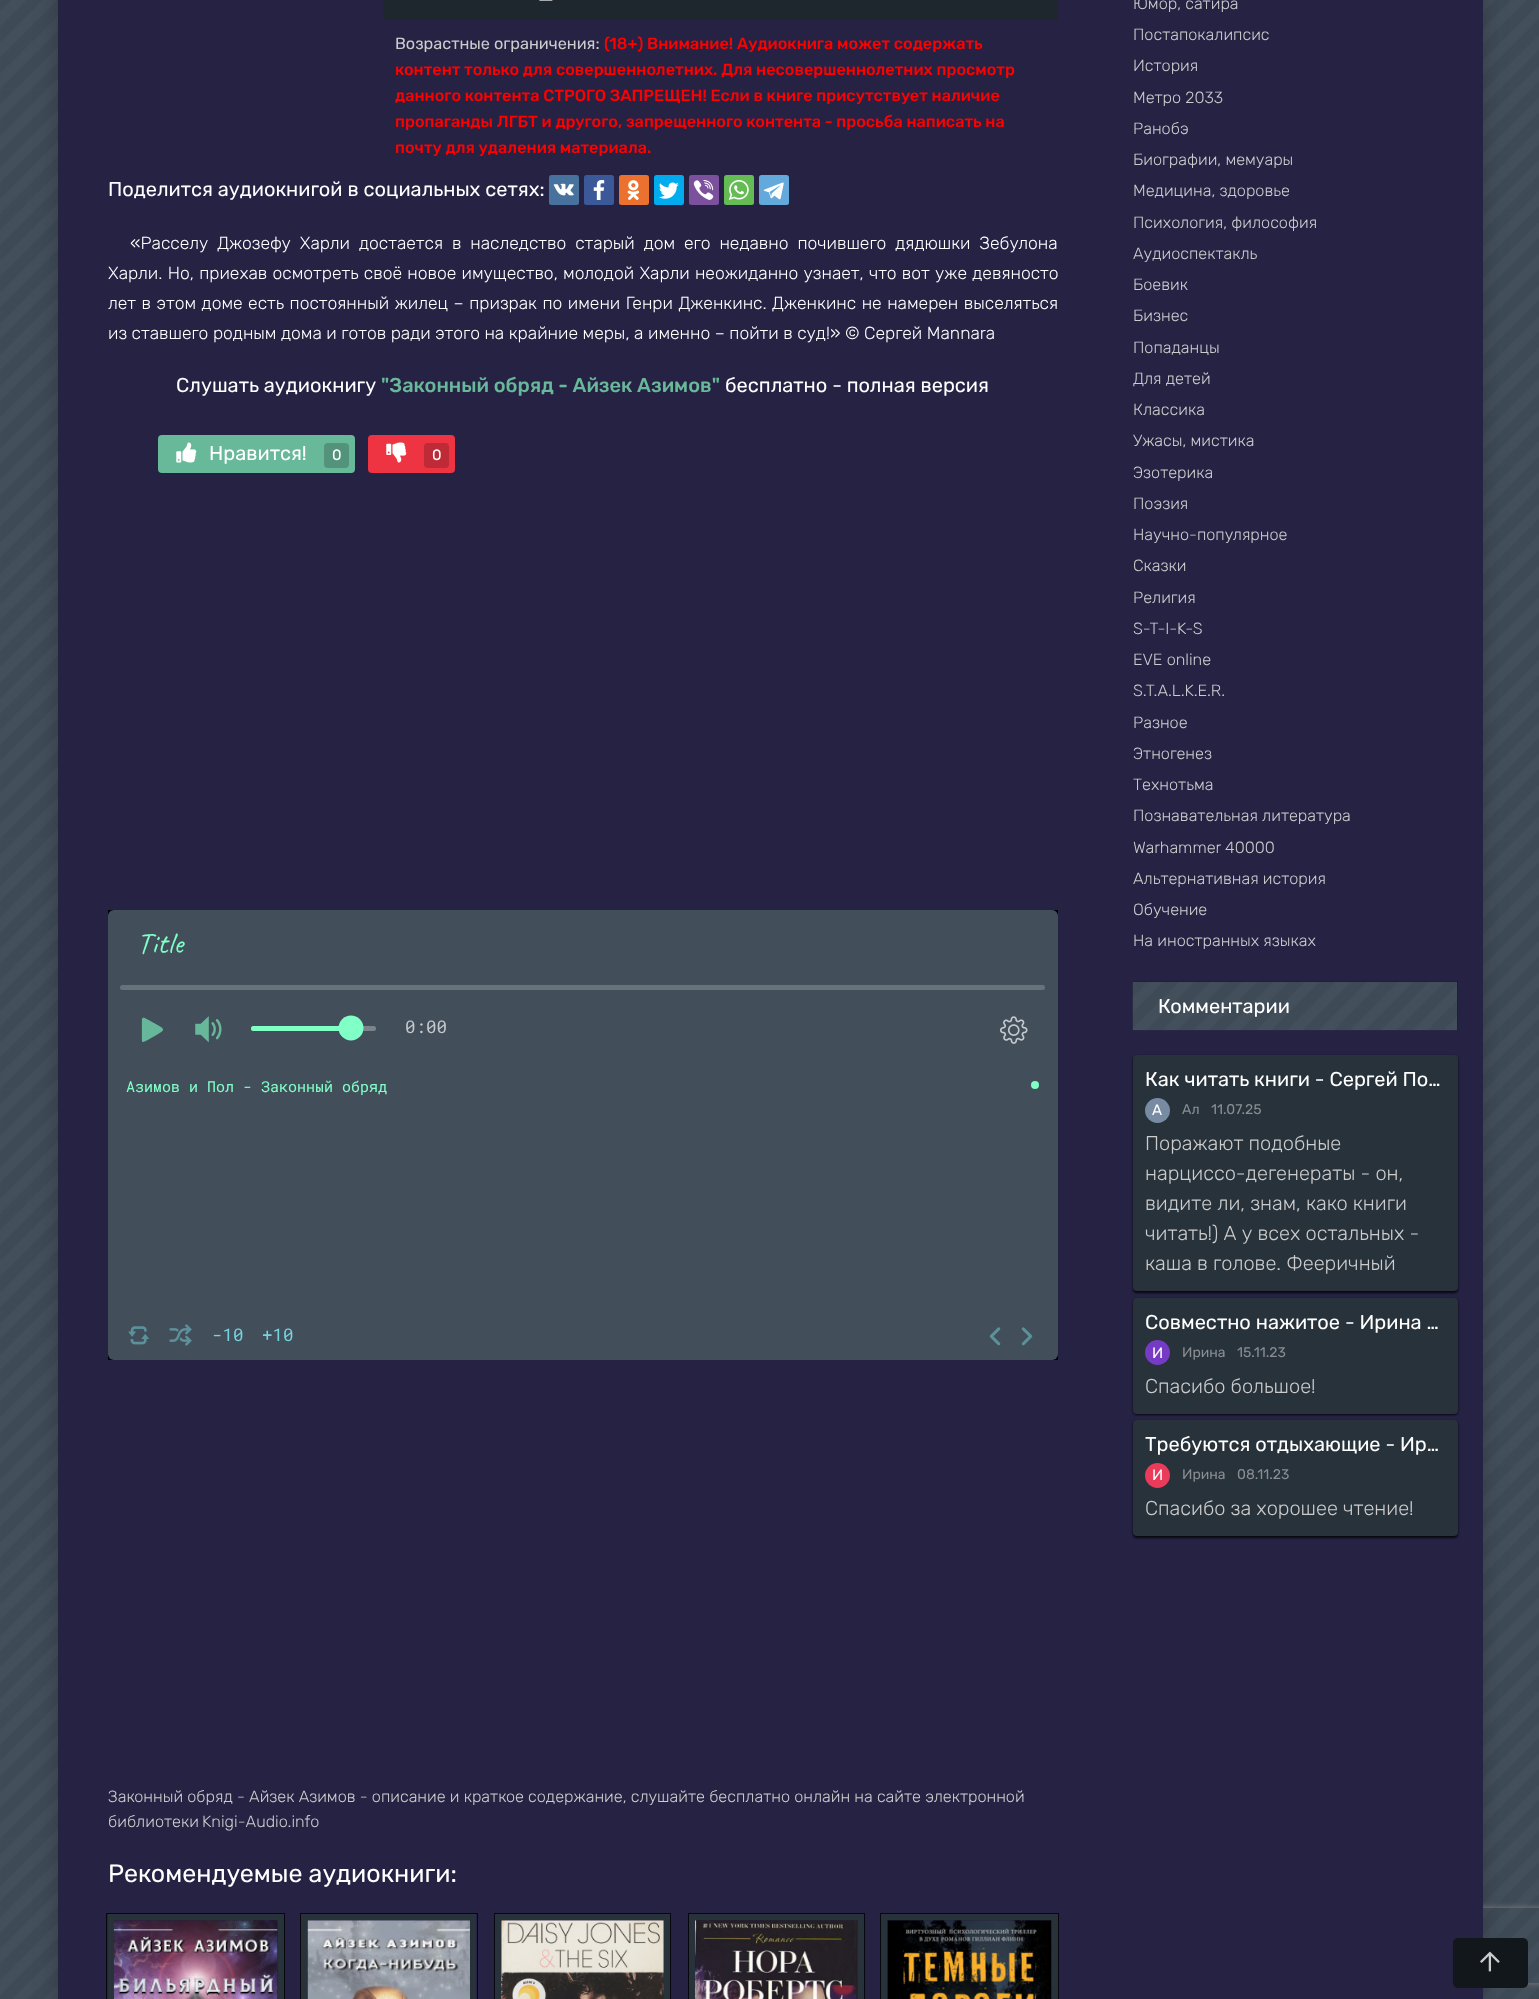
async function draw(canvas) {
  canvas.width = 1539
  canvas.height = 1999
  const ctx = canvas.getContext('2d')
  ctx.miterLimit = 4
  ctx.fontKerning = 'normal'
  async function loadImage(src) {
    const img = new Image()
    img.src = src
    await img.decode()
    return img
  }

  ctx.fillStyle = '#fff'
  ctx.fillRect(0, 0, 1539, 1999)
  ctx.drawImage(await loadImage('image0.png'), 0, 0, 1539, 1999)
  ctx.fillStyle = '#00000033'
  ctx.filter = 'blur(12.5px)'
  ctx.beginPath()
  ctx.rect(58, -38, 1425, 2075)
  ctx.fill()
  ctx.filter = 'none'
  ctx.save()
  ctx.beginPath()
  ctx.moveTo(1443, 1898)
  ctx.lineTo(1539, 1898)
  ctx.lineTo(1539, 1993)
  ctx.lineTo(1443, 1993)
  ctx.closePath()
  ctx.moveTo(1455.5, 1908)
  ctx.lineTo(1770.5, 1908)
  ctx.bezierCurveTo(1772, 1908, 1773, 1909, 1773, 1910.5)
  ctx.lineTo(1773, 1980.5)
  ctx.bezierCurveTo(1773, 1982, 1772, 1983, 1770.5, 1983)
  ctx.lineTo(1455.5, 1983)
  ctx.bezierCurveTo(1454, 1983, 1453, 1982, 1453, 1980.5)
  ctx.lineTo(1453, 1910.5)
  ctx.bezierCurveTo(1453, 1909, 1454, 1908, 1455.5, 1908)
  ctx.closePath()
  ctx.clip('evenodd')
  ctx.fillStyle = '#808080'
  ctx.filter = 'blur(3px)'
  ctx.beginPath()
  ctx.roundRect(1453, 1908, 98, 75, 2.5)
  ctx.fill()
  ctx.filter = 'none'
  ctx.restore()
  ctx.fillStyle = '#262244'
  ctx.fillRect(58, 0, 1425, 1999)
  ctx.fillStyle = '#1e272e'
  ctx.fillRect(383, 0, 675, 20)
  ctx.drawImage(await loadImage('image1.png'), 539, 0, 14, 1)
  ctx.font = '16.25px Rubik'
  ctx.fillStyle = '#ccc'
  ctx.fillText('Возрастные ограничения:', 395, 49)
  ctx.font = '500 16.25px Rubik'
  ctx.fillStyle = '#f00'
  ctx.fillText('(18+) Внимание! Аудиокнига может содержать', 604, 49)
  ctx.fillText('контент только для совершеннолетних. Для несовершеннолетних просмотр', 395, 75)
  ctx.fillText('данного контента СТРОГО ЗАПРЕЩЕН! Если в книге присутствует наличие', 395, 101)
  ctx.fillText('пропаганды ЛГБТ и другого, запрещенного контента - просьба написать на', 395, 127)
  ctx.fillText('почту для удаления материала.', 395, 153)
  ctx.font = '20px Rubik'
  ctx.fillStyle = '#fff'
  ctx.fillText('Поделится аудиокнигой в социальных сетях:', 108, 196)
  ctx.fillStyle = '#48729e'
  ctx.beginPath()
  ctx.roundRect(549, 175, 30, 30, 2.5)
  ctx.fill()
  ctx.drawImage(await loadImage('image2.png'), 553, 183, 21, 13)
  ctx.fillStyle = '#3b5998'
  ctx.beginPath()
  ctx.roundRect(584, 175, 30, 30, 2.5)
  ctx.fill()
  ctx.drawImage(await loadImage('image3.png'), 593, 180, 12, 20)
  ctx.fillStyle = '#eb722e'
  ctx.beginPath()
  ctx.roundRect(619, 175, 30, 30, 2.5)
  ctx.fill()
  ctx.drawImage(await loadImage('image4.png'), 627, 180, 12, 20)
  ctx.fillStyle = '#00aced'
  ctx.beginPath()
  ctx.roundRect(654, 175, 30, 30, 2.5)
  ctx.fill()
  ctx.drawImage(await loadImage('image5.png'), 659, 182, 20, 17)
  ctx.fillStyle = '#7b519d'
  ctx.beginPath()
  ctx.roundRect(689, 175, 30, 30, 2.5)
  ctx.fill()
  ctx.drawImage(await loadImage('image6.png'), 693, 180, 21, 20)
  ctx.fillStyle = '#65bc54'
  ctx.beginPath()
  ctx.roundRect(724, 175, 30, 30, 2.5)
  ctx.fill()
  ctx.drawImage(await loadImage('image7.png'), 728, 180, 21, 20)
  ctx.fillStyle = '#64a9dc'
  ctx.beginPath()
  ctx.roundRect(759, 175, 30, 30, 2.5)
  ctx.fill()
  ctx.drawImage(await loadImage('image8.png'), 763, 182, 21, 18)
  ctx.wordSpacing = '4.4px'
  ctx.font = '300 17.5px Rubik'
  ctx.fillStyle = '#fff'
  ctx.fillText('«Расселу Джозефу Харли достается в наследство старый дом его недавно почившего дядюшки Зебулона', 130, 249)
  ctx.wordSpacing = '0.75px'
  ctx.fillText('Харли. Но, приехав осмотреть своё новое имущество, молодой Харли неожиданно узнает, что вот уже девяносто', 108, 279)
  ctx.wordSpacing = '1px'
  ctx.fillText('лет в этом доме есть постоянный жилец – призрак по имени Генри Дженкинс. Дженкинс не намерен выселяться', 108, 309)
  ctx.wordSpacing = '0px'
  ctx.fillText('из ставшего родным дома и готов ради этого на крайние меры, а именно – пойти в суд!» © Сергей Mannara', 108, 339)
  ctx.font = '20px Rubik'
  ctx.fillText('Слушать аудиокнигу', 176, 392)
  ctx.font = '500 20px Rubik'
  ctx.fillStyle = '#68b89a'
  ctx.fillText('"Законный обряд - Айзек Азимов"', 381, 392)
  ctx.font = '20px Rubik'
  ctx.fillStyle = '#fff'
  ctx.fillText('бесплатно - полная версия', 725, 392)
  ctx.fillStyle = '#68b89a'
  ctx.beginPath()
  ctx.roundRect(158, 435, 197, 38, 4)
  ctx.fill()
  ctx.drawImage(await loadImage('image9.png'), 176, 442, 21, 21)
  ctx.fillStyle = '#fff'
  ctx.fillText('Нравится!', 209, 460)
  ctx.fillStyle = '#53937b'
  ctx.beginPath()
  ctx.roundRect(324, 443, 25, 25, 4)
  ctx.fill()
  ctx.font = '15px Rubik'
  ctx.fillStyle = '#fff'
  ctx.fillText('0', 332, 460)
  ctx.fillStyle = '#ee3442'
  ctx.beginPath()
  ctx.roundRect(368, 435, 87, 38, 4)
  ctx.fill()
  ctx.drawImage(await loadImage('image10.png'), 386, 442, 21, 21)
  ctx.fillStyle = '#be2a35'
  ctx.beginPath()
  ctx.roundRect(424, 443, 25, 25, 4)
  ctx.fill()
  ctx.fillStyle = '#fff'
  ctx.fillText('0', 432, 460)
  ctx.fillStyle = '#000'
  ctx.fillRect(108, 910, 950, 450)
  ctx.fillStyle = '#424f5a'
  ctx.beginPath()
  ctx.roundRect(108, 910, 950, 450, 6)
  ctx.fill()
  ctx.letterSpacing = '0.5px'
  ctx.font = '30px Caveat'
  ctx.fillStyle = '#80ffc7'
  ctx.fillText('Title', 137, 953)
  ctx.fillStyle = '#68727b'
  ctx.beginPath()
  ctx.roundRect(120, 985, 925, 5, 2.5)
  ctx.fill()
  ctx.drawImage(await loadImage('image11.png'), 141, 1017, 22, 25)
  ctx.drawImage(await loadImage('image12.png'), 195, 1016, 27, 27)
  ctx.fillStyle = '#7b848c'
  ctx.beginPath()
  ctx.roundRect(251, 1026, 125, 5, 2.5)
  ctx.fill()
  ctx.fillStyle = '#80ffc7'
  ctx.beginPath()
  ctx.roundRect(251, 1026, 100, 5, 2.5)
  ctx.fill()
  ctx.beginPath()
  ctx.arc(351, 1028, 12.5, 0, 2 * Math.PI)
  ctx.fill()
  ctx.letterSpacing = '0px'
  ctx.font = '17.5px Roboto Mono'
  ctx.fillStyle = '#c6cace'
  ctx.fillText('0:00', 405, 1033)
  ctx.drawImage(await loadImage('image13.png'), 1000, 1016, 28, 28)
  ctx.font = '15px Roboto Mono'
  ctx.fillStyle = '#80ffc7'
  ctx.fillText('Азимов и Пол - Законный обряд', 126, 1092)
  ctx.beginPath()
  ctx.arc(1035, 1085, 4, 0, 2 * Math.PI)
  ctx.fill()
  ctx.drawImage(await loadImage('image14.png'), 128, 1326, 21, 19)
  ctx.drawImage(await loadImage('image15.png'), 169, 1324, 23, 22)
  ctx.font = '17.5px Roboto Mono'
  ctx.fillStyle = '#76d3de'
  ctx.fillText('-10', 212, 1341)
  ctx.fillText('+10', 262, 1341)
  ctx.drawImage(await loadImage('image16.png'), 989, 1327, 12, 19)
  ctx.drawImage(await loadImage('image17.png'), 1021, 1327, 12, 19)
  ctx.font = '300 16.25px Rubik'
  ctx.fillStyle = '#ccc'
  ctx.fillText('Законный обряд - Айзек Азимов - описание и краткое содержание, слушайте бесплатно онлайн на сайте электронной', 108, 1802)
  ctx.wordSpacing = '-1px'
  ctx.fillText('библиотеки Knigi-Audio.info', 108, 1827)
  ctx.wordSpacing = '0px'
  ctx.font = '25px Rubik'
  ctx.fillStyle = '#fff'
  ctx.fillText('Рекомендуемые аудиокниги:', 108, 1882)
  ctx.strokeStyle = '#08070e'
  ctx.strokeRect(106.5, 1913.5, 178, 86)
  ctx.strokeStyle = '#27323b'
  ctx.lineWidth = 6
  ctx.strokeRect(111, 1917, 170, 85)
  ctx.drawImage(await loadImage('image18.png'), 113, 1920, 165, 79)
  ctx.strokeStyle = '#08070e'
  ctx.lineWidth = 1
  ctx.strokeRect(300.5, 1913.5, 177, 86)
  ctx.strokeStyle = '#27323b'
  ctx.lineWidth = 6
  ctx.strokeRect(304, 1917, 169, 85)
  ctx.drawImage(await loadImage('image19.png'), 307, 1920, 163, 79)
  ctx.strokeStyle = '#08070e'
  ctx.lineWidth = 1
  ctx.strokeRect(494.5, 1913.5, 176, 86)
  ctx.strokeStyle = '#27323b'
  ctx.lineWidth = 6
  ctx.strokeRect(498, 1917, 169, 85)
  ctx.drawImage(await loadImage('image20.png'), 501, 1920, 163, 79)
  ctx.strokeStyle = '#08070e'
  ctx.lineWidth = 1
  ctx.strokeRect(688.5, 1913.5, 176, 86)
  ctx.strokeStyle = '#27323b'
  ctx.lineWidth = 6
  ctx.strokeRect(692, 1917, 169, 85)
  ctx.drawImage(await loadImage('image21.png'), 695, 1920, 163, 79)
  ctx.strokeStyle = '#08070e'
  ctx.lineWidth = 1
  ctx.strokeRect(880.5, 1913.5, 178, 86)
  ctx.strokeStyle = '#27323b'
  ctx.lineWidth = 6
  ctx.strokeRect(884, 1917, 171, 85)
  ctx.drawImage(await loadImage('image22.png'), 887, 1920, 165, 79)
  ctx.font = '300 16.25px Rubik'
  ctx.fillStyle = '#ccc'
  ctx.fillText('Юмор, сатира', 1133, 9)
  ctx.fillText('Постапокалипсис', 1133, 40)
  ctx.fillText('История', 1133, 71)
  ctx.fillText('Метро 2033', 1133, 103)
  ctx.fillText('Ранобэ', 1133, 134)
  ctx.fillText('Биографии, мемуары', 1133, 165)
  ctx.fillText('Медицина, здоровье', 1133, 196)
  ctx.fillText('Психология, философия', 1133, 228)
  ctx.fillText('Аудиоспектакль', 1133, 259)
  ctx.fillText('Боевик', 1133, 290)
  ctx.fillText('Бизнес', 1133, 321)
  ctx.fillText('Попаданцы', 1133, 353)
  ctx.fillText('Для детей', 1133, 384)
  ctx.fillText('Классика', 1133, 415)
  ctx.fillText('Ужасы, мистика', 1133, 446)
  ctx.fillText('Эзотерика', 1133, 478)
  ctx.fillText('Поэзия', 1133, 509)
  ctx.fillText('Научно-популярное', 1133, 540)
  ctx.fillText('Сказки', 1133, 571)
  ctx.fillText('Религия', 1133, 603)
  ctx.fillText('S-T-I-K-S', 1133, 634)
  ctx.fillText('EVE online', 1133, 665)
  ctx.fillText('S.T.A.L.K.E.R.', 1133, 696)
  ctx.fillText('Разное', 1133, 728)
  ctx.fillText('Этногенез', 1133, 759)
  ctx.fillText('Технотьма', 1133, 790)
  ctx.fillText('Познавательная литература', 1133, 821)
  ctx.fillText('Warhammer 40000', 1133, 853)
  ctx.fillText('Альтернативная история', 1133, 884)
  ctx.fillText('Обучение', 1133, 915)
  ctx.fillText('На иностранных языках', 1133, 946)
  ctx.fillStyle = '#12171b'
  ctx.fillRect(1133, 981, 325, 49)
  ctx.drawImage(await loadImage('image23.png'), 1132, 981, 326, 50)
  ctx.font = '20px Rubik'
  ctx.fillStyle = '#fff'
  ctx.fillText('Комментарии', 1158, 1013)
  ctx.fillStyle = '#000000cc'
  ctx.filter = 'blur(1px)'
  ctx.beginPath()
  ctx.roundRect(1133, 1056, 325, 237, 4)
  ctx.fill()
  ctx.filter = 'none'
  ctx.fillStyle = '#27323b'
  ctx.beginPath()
  ctx.roundRect(1133, 1055, 325, 236, 4)
  ctx.fill()
  ctx.fillStyle = '#fff'
  ctx.fillText('Как читать книги - Сергей По…', 1145, 1086)
  ctx.fillStyle = '#778ca3'
  ctx.beginPath()
  ctx.arc(1157.5, 1110.5, 12.5, 0, 2 * Math.PI)
  ctx.fill()
  ctx.font = '15px Rubik'
  ctx.fillStyle = '#fff'
  ctx.fillText('А', 1152, 1115)
  ctx.font = '14px Rubik'
  ctx.fillStyle = '#8a8e92'
  ctx.fillText('Ал', 1182, 1114)
  ctx.fillText('11.07.25', 1211, 1114)
  ctx.font = '300 20px Rubik'
  ctx.fillStyle = '#ccc'
  ctx.fillText('Поражают подобные', 1145, 1150)
  ctx.fillText('нарциссо-дегенераты - он,', 1145, 1180)
  ctx.fillText('видите ли, знам, како книги', 1145, 1210)
  ctx.fillText('читать!) А у всех остальных -', 1145, 1240)
  ctx.fillText('каша в голове. Фееричный', 1145, 1270)
  ctx.fillStyle = '#000000cc'
  ctx.filter = 'blur(1px)'
  ctx.beginPath()
  ctx.roundRect(1133, 1299, 325, 116, 4)
  ctx.fill()
  ctx.filter = 'none'
  ctx.fillStyle = '#27323b'
  ctx.beginPath()
  ctx.roundRect(1133, 1298, 325, 116, 4)
  ctx.fill()
  ctx.font = '20px Rubik'
  ctx.fillStyle = '#fff'
  ctx.fillText('Совместно нажитое - Ирина …', 1145, 1329)
  ctx.fillStyle = '#753bc5'
  ctx.beginPath()
  ctx.arc(1157.5, 1352.5, 12.5, 0, 2 * Math.PI)
  ctx.fill()
  ctx.font = '15px Rubik'
  ctx.fillStyle = '#fff'
  ctx.fillText('И', 1152, 1358)
  ctx.font = '14px Rubik'
  ctx.fillStyle = '#8a8e92'
  ctx.fillText('Ирина', 1182, 1357)
  ctx.fillText('15.11.23', 1237, 1357)
  ctx.font = '300 20px Rubik'
  ctx.fillStyle = '#ccc'
  ctx.fillText('Спасибо большое!', 1145, 1393)
  ctx.fillStyle = '#000000cc'
  ctx.filter = 'blur(1px)'
  ctx.beginPath()
  ctx.roundRect(1133, 1421, 325, 117, 4)
  ctx.fill()
  ctx.filter = 'none'
  ctx.fillStyle = '#27323b'
  ctx.beginPath()
  ctx.roundRect(1133, 1420, 325, 116, 4)
  ctx.fill()
  ctx.font = '20px Rubik'
  ctx.fillStyle = '#fff'
  ctx.fillText('Требуются отдыхающие - Ир…', 1145, 1451)
  ctx.fillStyle = '#eb3b5a'
  ctx.beginPath()
  ctx.arc(1157.5, 1475.5, 12.5, 0, 2 * Math.PI)
  ctx.fill()
  ctx.font = '15px Rubik'
  ctx.fillStyle = '#fff'
  ctx.fillText('И', 1152, 1480)
  ctx.font = '14px Rubik'
  ctx.fillStyle = '#8a8e92'
  ctx.fillText('Ирина', 1182, 1479)
  ctx.fillText('08.11.23', 1237, 1479)
  ctx.font = '300 20px Rubik'
  ctx.fillStyle = '#ccc'
  ctx.fillText('Спасибо за хорошее чтение!', 1145, 1515)
  ctx.fillStyle = '#12171b'
  ctx.beginPath()
  ctx.roundRect(1453, 1938, 75, 50, 5)
  ctx.fill()
  ctx.drawImage(await loadImage('image24.png'), 1480, 1951, 20, 21)
}

draw(document.querySelector('canvas'))
